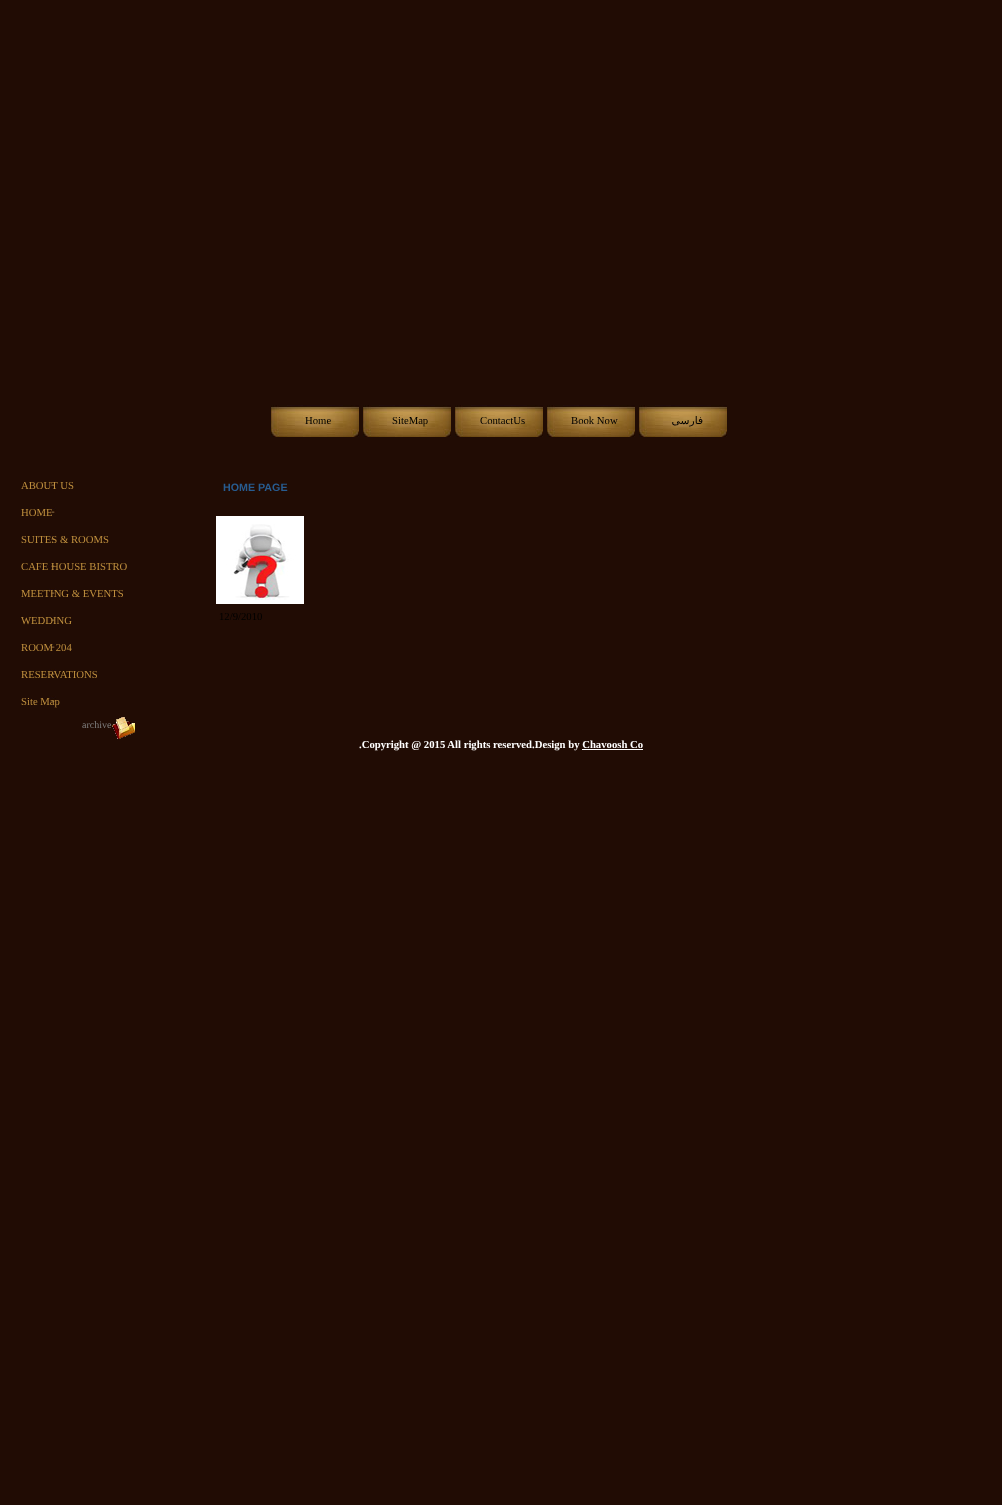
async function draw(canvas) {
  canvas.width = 1002
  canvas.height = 1505
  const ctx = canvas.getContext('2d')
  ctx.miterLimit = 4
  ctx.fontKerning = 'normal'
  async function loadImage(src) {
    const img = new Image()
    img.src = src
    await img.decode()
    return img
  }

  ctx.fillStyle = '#210c04'
  ctx.fillRect(0, 0, 1002, 1505)
  ctx.drawImage(await loadImage('image0.png'), 271, 405, 88, 32)
  ctx.font = '10.7px Liberation Serif'
  ctx.fillStyle = '#000'
  ctx.fillText('Home', 305, 424)
  ctx.drawImage(await loadImage('image0.png'), 363, 405, 88, 32)
  ctx.fillText('SiteMap', 392, 424)
  ctx.drawImage(await loadImage('image0.png'), 455, 405, 88, 32)
  ctx.fillText('ContactUs', 480, 424)
  ctx.drawImage(await loadImage('image0.png'), 547, 405, 88, 32)
  ctx.fillText('Book Now', 571, 424)
  ctx.drawImage(await loadImage('image0.png'), 639, 405, 88, 32)
  ctx.direction = 'rtl'
  ctx.font = '10.7px DejaVu Sans'
  ctx.fillText('فارسی', 703, 424)
  ctx.drawImage(await loadImage('image1.png'), 46, 480, 10, 8)
  ctx.direction = 'ltr'
  ctx.font = '10.7px Liberation Serif'
  ctx.fillStyle = '#bf8f3e'
  ctx.fillText('ABOUT US', 21, 489)
  ctx.drawImage(await loadImage('image1.png'), 46, 507, 10, 8)
  ctx.fillText('HOME', 21, 516)
  ctx.drawImage(await loadImage('image1.png'), 46, 534, 10, 8)
  ctx.fillText('SUITES & ROOMS', 21, 543)
  ctx.drawImage(await loadImage('image1.png'), 46, 561, 10, 8)
  ctx.fillText('CAFE HOUSE BISTRO', 21, 570)
  ctx.drawImage(await loadImage('image1.png'), 46, 588, 10, 8)
  ctx.fillText('MEETING & EVENTS', 21, 597)
  ctx.drawImage(await loadImage('image1.png'), 46, 615, 10, 8)
  ctx.fillText('WEDDING', 21, 624)
  ctx.drawImage(await loadImage('image1.png'), 46, 642, 10, 8)
  ctx.fillText('ROOM 204', 21, 651)
  ctx.drawImage(await loadImage('image1.png'), 46, 669, 10, 8)
  ctx.fillText('RESERVATIONS', 21, 678)
  ctx.drawImage(await loadImage('image1.png'), 46, 696, 10, 8)
  ctx.fillText('Site Map', 21, 705)
  ctx.font = '10px Liberation Serif'
  ctx.fillStyle = '#808080'
  ctx.fillText('archive', 82, 728)
  ctx.drawImage(await loadImage('image2.png'), 112, 717, 23, 22)
  ctx.font = 'bold 10.7px Liberation Sans'
  ctx.fillStyle = '#285c90'
  ctx.fillText('HOME PAGE', 223, 491)
  ctx.drawImage(await loadImage('image3.png'), 216, 516, 88, 88)
  ctx.font = '10.7px Liberation Serif'
  ctx.fillStyle = '#000'
  ctx.fillText('12/9/2010', 219, 620)
  ctx.font = 'bold 10.7px Liberation Serif'
  ctx.fillStyle = '#fff'
  ctx.fillText('.Copyright @ 2015 All rights reserved.Design by Chavoosh Co', 359, 748)
  ctx.fillRect(582, 749, 61, 1)
}

draw(document.querySelector('canvas'))
